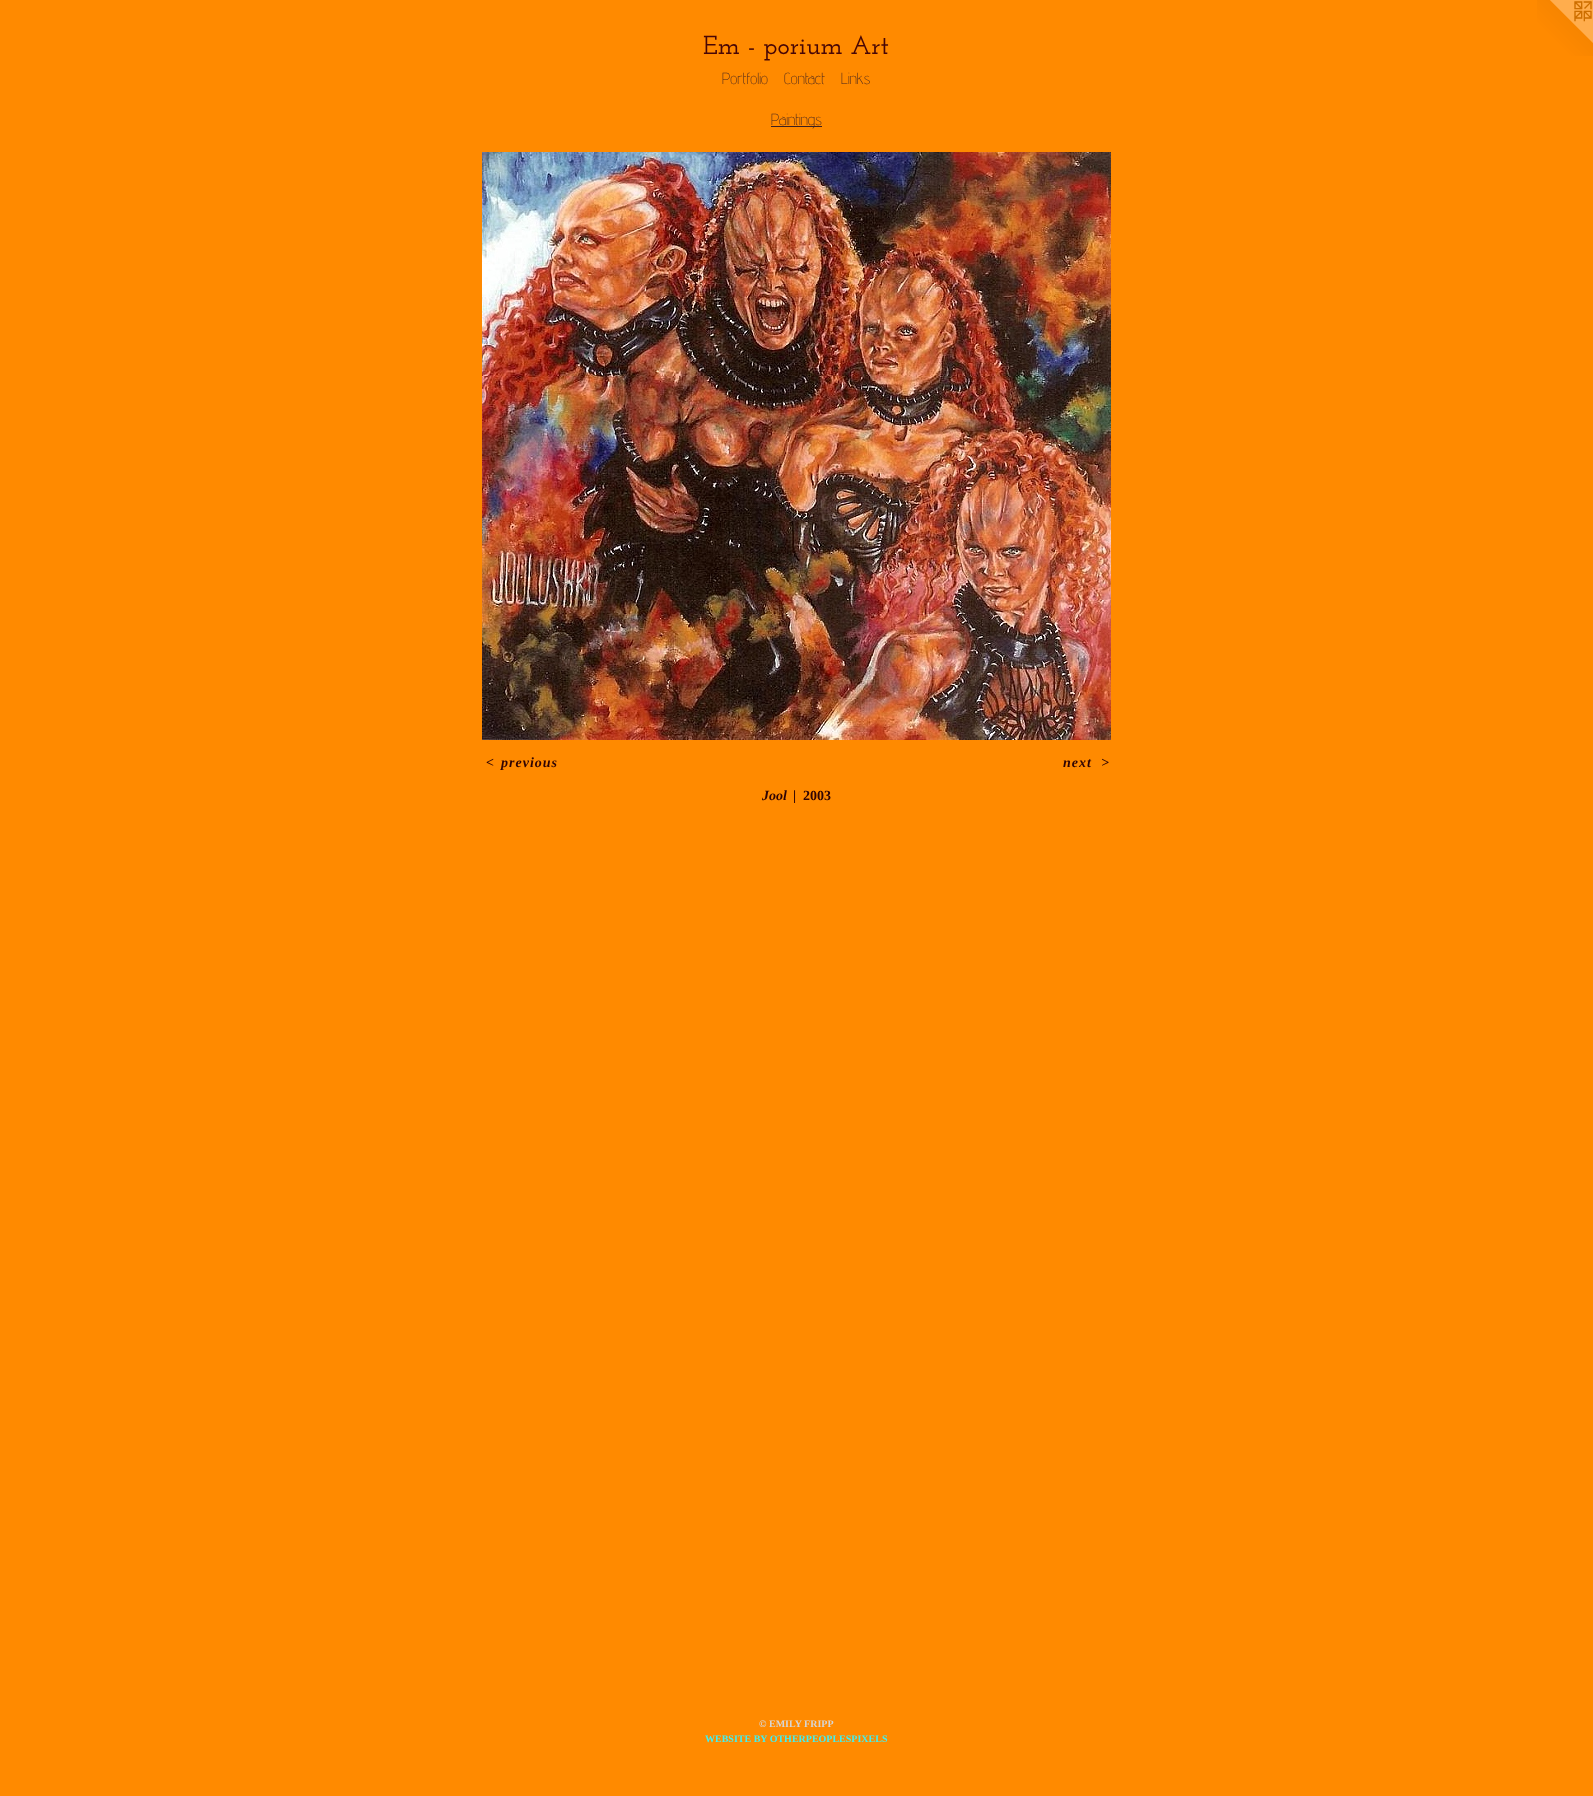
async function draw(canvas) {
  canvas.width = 1593
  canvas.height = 1796
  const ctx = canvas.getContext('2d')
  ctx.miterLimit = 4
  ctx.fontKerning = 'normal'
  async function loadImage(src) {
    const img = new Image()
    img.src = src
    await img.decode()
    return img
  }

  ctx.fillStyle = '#ff8a00'
  ctx.fillRect(0, 0, 1593, 1796)
  ctx.font = '100 26px Josefin Slab'
  ctx.fillStyle = '#470606'
  ctx.fillText('Em - porium Art', 703, 54)
  ctx.drawImage(await loadImage('image0.png'), 1537, 0, 56, 56)
  ctx.font = '200 16px Advent Pro'
  ctx.fillStyle = '#3c2020'
  ctx.fillText('Portfolio', 722, 84)
  ctx.fillText('Contact', 784, 84)
  ctx.fillText('Links', 841, 84)
  ctx.fillRect(771, 126, 51, 1)
  ctx.fillText('Paintings', 771, 125)
  ctx.drawImage(await loadImage('image1.png'), 482, 152, 629, 588)
  ctx.letterSpacing = '1px'
  ctx.font = 'italic bold 14px Liberation Serif'
  ctx.fillStyle = '#2f0404'
  ctx.fillText('<', 486, 767)
  ctx.fillText('previous', 501, 767)
  ctx.fillText('next', 1063, 767)
  ctx.fillText('>', 1101, 767)
  ctx.letterSpacing = '0px'
  ctx.fillText('Jool', 762, 800)
  ctx.font = 'bold 14px Liberation Serif'
  ctx.fillText('|', 793, 800)
  ctx.fillText('2003', 803, 800)
  ctx.font = 'bold 10px Liberation Serif'
  ctx.fillStyle = '#d6d6d6'
  ctx.fillText('© EMILY FRIPP', 759, 1727)
  ctx.fillStyle = '#3ff2f3'
  ctx.fillText('WEBSITE BY OTHERPEOPLESPIXELS', 705, 1742)
}

draw(document.querySelector('canvas'))
